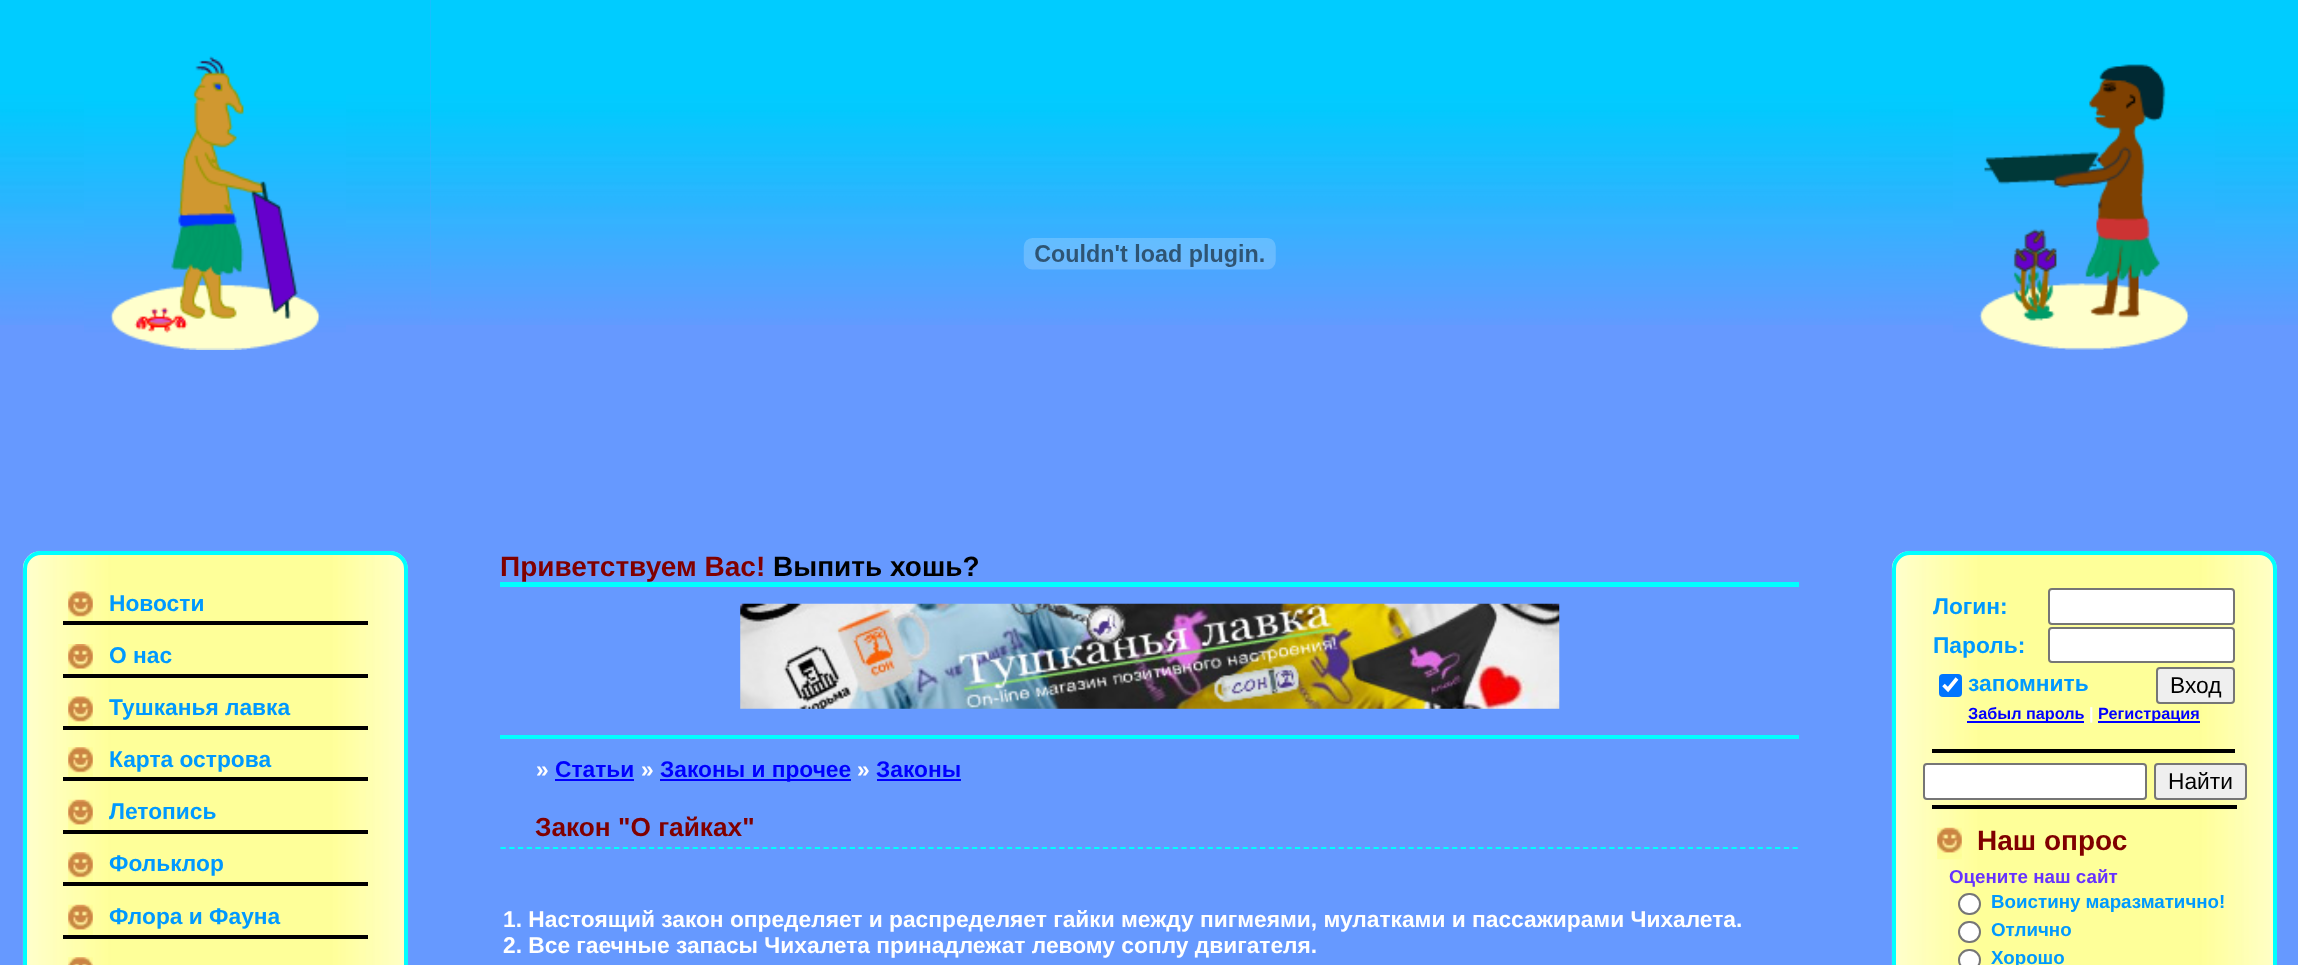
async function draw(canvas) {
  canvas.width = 2298
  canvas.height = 965
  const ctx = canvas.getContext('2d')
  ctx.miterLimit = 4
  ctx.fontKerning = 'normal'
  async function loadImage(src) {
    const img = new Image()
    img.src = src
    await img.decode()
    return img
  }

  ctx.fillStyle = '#69f'
  ctx.fillRect(0, 0, 2298, 965)
  ctx.drawImage(await loadImage('image0.png'), 0, 0, 431, 325)
  ctx.drawImage(await loadImage('image1.png'), 84, 56, 262, 294)
  ctx.drawImage(await loadImage('image2.png'), 430, 0, 1439, 325)
  ctx.drawImage(await loadImage('image3.png'), 1023, 238, 253, 32)
  ctx.drawImage(await loadImage('image4.png'), 1869, 0, 429, 325)
  ctx.drawImage(await loadImage('image5.png'), 1953, 64, 262, 286)
  ctx.drawImage(await loadImage('image6.png'), 22, 551, 386, 414)
  ctx.beginPath()
  ctx.roundRect(25, 553, 381, 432, 16)
  ctx.strokeStyle = '#0ff'
  ctx.lineWidth = 4
  ctx.stroke()
  ctx.drawImage(await loadImage('image7.png'), 68, 591, 25, 30)
  ctx.fillStyle = '#000'
  ctx.fillRect(63, 621, 305, 4)
  ctx.font = 'bold 22.75px Liberation Sans'
  ctx.fillStyle = '#09f'
  ctx.fillText('Новости', 109, 611)
  ctx.drawImage(await loadImage('image8.png'), 68, 644, 25, 30)
  ctx.fillStyle = '#000'
  ctx.fillRect(63, 674, 305, 4)
  ctx.fillStyle = '#09f'
  ctx.fillText('О нас', 109, 663)
  ctx.drawImage(await loadImage('image7.png'), 68, 696, 25, 30)
  ctx.fillStyle = '#000'
  ctx.fillRect(63, 726, 305, 4)
  ctx.fillStyle = '#09f'
  ctx.fillText('Тушканья лавка', 109, 715)
  ctx.drawImage(await loadImage('image9.png'), 68, 747, 25, 30)
  ctx.fillStyle = '#000'
  ctx.fillRect(63, 777, 305, 4)
  ctx.fillStyle = '#09f'
  ctx.fillText('Карта острова', 109, 767)
  ctx.drawImage(await loadImage('image10.png'), 68, 799, 25, 31)
  ctx.fillStyle = '#000'
  ctx.fillRect(63, 830, 305, 4)
  ctx.fillStyle = '#09f'
  ctx.fillText('Летопись', 109, 819)
  ctx.drawImage(await loadImage('image9.png'), 68, 852, 25, 30)
  ctx.fillStyle = '#000'
  ctx.fillRect(63, 882, 305, 4)
  ctx.fillStyle = '#09f'
  ctx.fillText('Фольклор', 109, 871)
  ctx.drawImage(await loadImage('image10.png'), 68, 904, 25, 31)
  ctx.fillStyle = '#000'
  ctx.fillRect(63, 935, 305, 4)
  ctx.fillStyle = '#09f'
  ctx.fillText('Флора и Фауна', 109, 924)
  ctx.drawImage(await loadImage('image11.png'), 68, 957, 25, 8)
  ctx.font = 'bold 28px Liberation Sans'
  ctx.fillStyle = '#800000'
  ctx.fillText('Приветствуем Вас!', 500, 576)
  ctx.fillStyle = '#000'
  ctx.fillText('Выпить хошь?', 773, 576)
  ctx.fillStyle = '#0ff'
  ctx.fillRect(500, 582, 1299, 5)
  ctx.drawImage(await loadImage('image12.png'), 740, 603, 820, 106)
  ctx.fillRect(500, 735, 1299, 4)
  ctx.font = 'bold 22.75px Liberation Sans'
  ctx.fillStyle = '#fff'
  ctx.fillText('»', 536, 777)
  ctx.fillStyle = '#00f'
  ctx.fillText('Статьи', 555, 777)
  ctx.fillRect(555, 779, 79, 2)
  ctx.fillStyle = '#fff'
  ctx.fillText('»', 641, 777)
  ctx.fillStyle = '#00f'
  ctx.fillRect(660, 779, 191, 2)
  ctx.fillText('Законы и прочее', 660, 777)
  ctx.fillStyle = '#fff'
  ctx.fillText('»', 857, 777)
  ctx.fillStyle = '#00f'
  ctx.fillText('Законы', 876, 777)
  ctx.fillRect(877, 779, 84, 2)
  ctx.font = 'bold 26.25px Liberation Sans'
  ctx.fillStyle = '#800000'
  ctx.fillText('Закон "О гайках"', 535, 836)
  ctx.beginPath()
  ctx.moveTo(500.5, 848)
  ctx.lineTo(1799, 848)
  ctx.lineWidth = 1.8
  ctx.setLineDash([5.25, 3.48])
  ctx.stroke()
  ctx.font = 'bold 22.75px Liberation Sans'
  ctx.fillStyle = '#fff'
  ctx.fillText('1. Настоящий закон определяет и распределяет гайки между пигмеями, мулатками и пассажирами Чихалета.', 503, 927)
  ctx.fillText('2. Все гаечные запасы Чихалета принадлежат левому соплу двигателя.', 503, 953)
  ctx.drawImage(await loadImage('image6.png'), 1891, 551, 386, 414)
  ctx.beginPath()
  ctx.roundRect(1894, 553, 381, 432, 16)
  ctx.lineWidth = 4
  ctx.setLineDash([])
  ctx.stroke()
  ctx.fillStyle = '#09f'
  ctx.fillText('Логин:', 1933, 614)
  ctx.fillStyle = '#fff'
  ctx.beginPath()
  ctx.roundRect(2049, 589, 185, 35, 3)
  ctx.fill()
  ctx.strokeStyle = '#767676'
  ctx.lineWidth = 2
  ctx.stroke()
  ctx.fillStyle = '#09f'
  ctx.fillText('Пароль:', 1933, 653)
  ctx.fillStyle = '#fff'
  ctx.beginPath()
  ctx.roundRect(2049, 628, 185, 34, 3)
  ctx.fill()
  ctx.stroke()
  ctx.fillStyle = '#0075ff'
  ctx.beginPath()
  ctx.roundRect(1939, 674, 23, 23, 4)
  ctx.fill()
  ctx.beginPath()
  ctx.moveTo(1943.5, 685)
  ctx.lineTo(1948, 689.5)
  ctx.lineTo(1957, 678.5)
  ctx.strokeStyle = '#fff'
  ctx.lineWidth = 3.6
  ctx.stroke()
  ctx.fillStyle = '#09f'
  ctx.fillText('запомнить', 1968, 691)
  ctx.fillStyle = '#efefef'
  ctx.beginPath()
  ctx.roundRect(2157, 668, 77, 35, 3)
  ctx.fill()
  ctx.strokeStyle = '#767676'
  ctx.lineWidth = 2
  ctx.stroke()
  ctx.font = '22.75px Liberation Sans'
  ctx.fillStyle = '#000'
  ctx.fillText('Вход', 2170, 693)
  ctx.fillStyle = '#00f'
  ctx.fillRect(1967, 721, 117, 2)
  ctx.font = 'bold 16.25px Liberation Sans'
  ctx.fillText('Забыл пароль', 1968, 719)
  ctx.fillStyle = '#fff'
  ctx.fillText('|', 2089, 719)
  ctx.fillStyle = '#00f'
  ctx.fillRect(2098, 721, 102, 2)
  ctx.fillText('Регистрация', 2098, 719)
  ctx.fillStyle = '#000'
  ctx.fillRect(1932, 749, 303, 4)
  ctx.fillStyle = '#fff'
  ctx.beginPath()
  ctx.roundRect(1924, 764, 222, 35, 3)
  ctx.fill()
  ctx.stroke()
  ctx.fillStyle = '#efefef'
  ctx.beginPath()
  ctx.roundRect(2155, 764, 91, 35, 3)
  ctx.fill()
  ctx.stroke()
  ctx.font = '22.75px Liberation Sans'
  ctx.fillStyle = '#000'
  ctx.fillText('Найти', 2168, 789)
  ctx.fillRect(1932, 805, 305, 4)
  ctx.drawImage(await loadImage('image13.png'), 1937, 827, 25, 33)
  ctx.font = 'bold 28px Liberation Sans'
  ctx.fillStyle = '#800000'
  ctx.fillText('Наш опрос', 1977, 850)
  ctx.font = 'bold 18.75px Liberation Sans'
  ctx.fillStyle = '#63f'
  ctx.fillText('Оцените наш сайт', 1949, 883)
  ctx.fillStyle = '#fff'
  ctx.beginPath()
  ctx.roundRect(1959, 894, 21, 20, 10)
  ctx.fill()
  ctx.stroke()
  ctx.fillStyle = '#09f'
  ctx.fillText('Воистину маразматично!', 1991, 908)
  ctx.fillStyle = '#fff'
  ctx.beginPath()
  ctx.roundRect(1959, 922, 21, 20, 10)
  ctx.fill()
  ctx.stroke()
  ctx.fillStyle = '#09f'
  ctx.fillText('Отлично', 1991, 936)
  ctx.fillStyle = '#fff'
  ctx.beginPath()
  ctx.roundRect(1959, 950, 21, 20, 10)
  ctx.fill()
  ctx.stroke()
  ctx.fillStyle = '#09f'
  ctx.fillText('Хорошо', 1991, 964)
}

draw(document.querySelector('canvas'))
